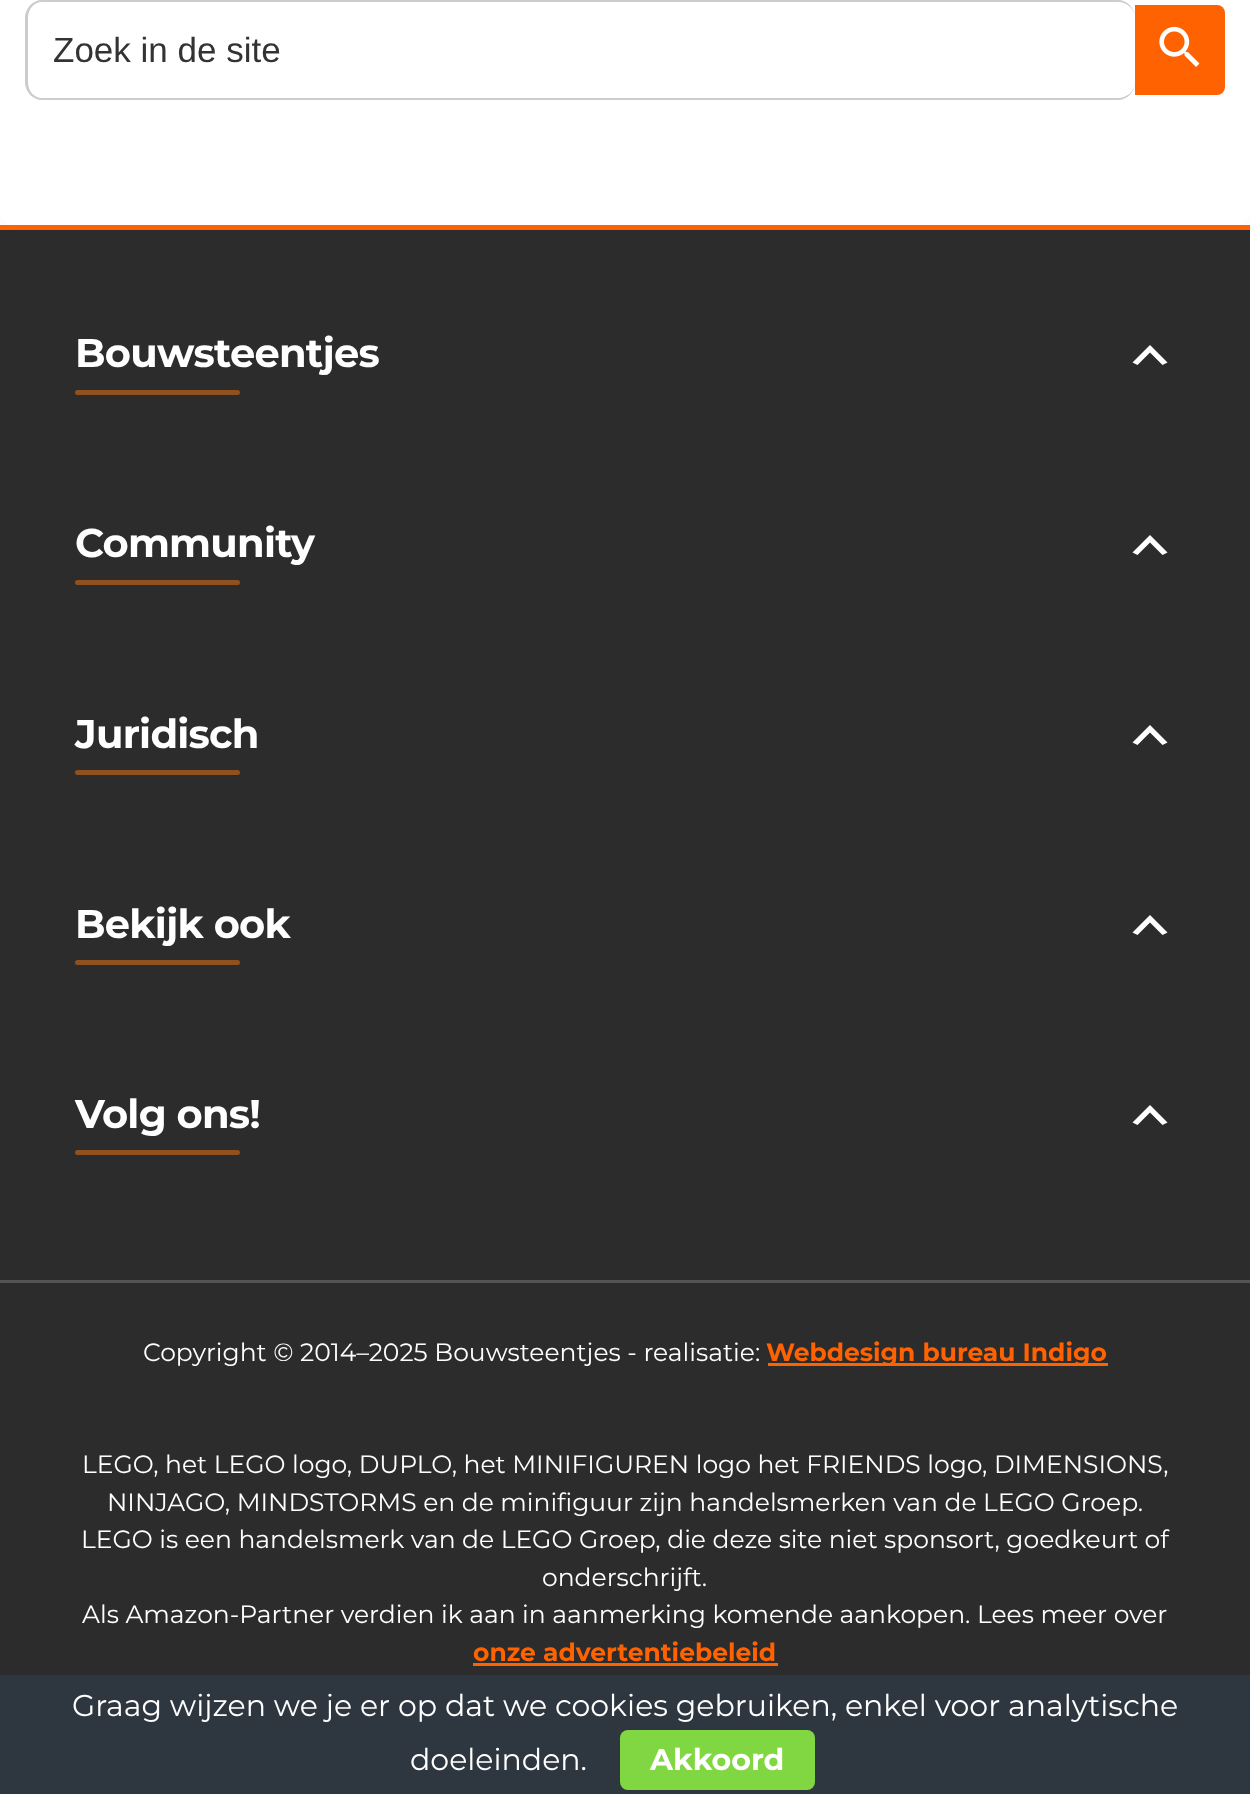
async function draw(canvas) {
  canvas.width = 1250
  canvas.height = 1794
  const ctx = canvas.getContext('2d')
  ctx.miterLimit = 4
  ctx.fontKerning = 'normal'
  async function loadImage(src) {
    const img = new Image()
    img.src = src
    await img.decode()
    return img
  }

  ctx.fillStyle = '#fefbfb'
  ctx.fillRect(0, 0, 1250, 1794)
  ctx.fillStyle = '#fff'
  ctx.beginPath()
  ctx.roundRect(0, -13, 1250, 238, 13)
  ctx.fill()
  ctx.fillStyle = '#ccc'
  ctx.beginPath()
  ctx.moveTo(42, 0)
  ctx.lineTo(1118, 0)
  ctx.bezierCurveTo(1127, 0, 1135, 8, 1135, 18)
  ctx.lineTo(1135, 82)
  ctx.bezierCurveTo(1135, 92, 1127, 100, 1118, 100)
  ctx.lineTo(42, 100)
  ctx.bezierCurveTo(33, 100, 25, 92, 25, 82)
  ctx.lineTo(25, 18)
  ctx.bezierCurveTo(25, 8, 33, 0, 42, 0)
  ctx.closePath()
  ctx.moveTo(42, 2)
  ctx.lineTo(1118, 2)
  ctx.bezierCurveTo(1127, 2, 1135, 9, 1135, 18)
  ctx.lineTo(1135, 82)
  ctx.bezierCurveTo(1135, 91, 1127, 98, 1118, 98)
  ctx.lineTo(42, 98)
  ctx.bezierCurveTo(34, 98, 28, 91, 28, 82)
  ctx.lineTo(28, 18)
  ctx.bezierCurveTo(28, 9, 34, 2, 42, 2)
  ctx.closePath()
  ctx.fill('evenodd')
  ctx.font = '35px Liberation Sans'
  ctx.fillStyle = '#333'
  ctx.fillText('Zoek in de site', 53, 62)
  ctx.fillStyle = '#ff6200'
  ctx.beginPath()
  ctx.roundRect(1135, 5, 90, 90, [0, 8, 8, 0])
  ctx.fill()
  ctx.drawImage(await loadImage('image0.png'), 1159, 26, 41, 41)
  ctx.fillStyle = '#2c2c2c'
  ctx.fillRect(0, 230, 1250, 1050)
  ctx.fillStyle = '#ff6200'
  ctx.fillRect(0, 225, 1250, 5)
  ctx.letterSpacing = '-0.75px'
  ctx.font = 'bold 40px Montserrat'
  ctx.fillStyle = '#fff'
  ctx.fillText('Bouwsteentjes', 75, 367)
  ctx.beginPath()
  ctx.moveTo(1162.5, 365)
  ctx.lineTo(1150, 352.5)
  ctx.lineTo(1137.5, 365)
  ctx.lineTo(1132.5, 362.5)
  ctx.lineTo(1150, 345)
  ctx.lineTo(1167.5, 362.5)
  ctx.closePath()
  ctx.fill()
  ctx.fillStyle = '#90511e'
  ctx.beginPath()
  ctx.roundRect(75, 390, 165, 5, 2.5)
  ctx.fill()
  ctx.fillStyle = '#fff'
  ctx.fillText('Community', 75, 557)
  ctx.beginPath()
  ctx.moveTo(1162.5, 555)
  ctx.lineTo(1150, 542.5)
  ctx.lineTo(1137.5, 555)
  ctx.lineTo(1132.5, 552.5)
  ctx.lineTo(1150, 535)
  ctx.lineTo(1167.5, 552.5)
  ctx.closePath()
  ctx.fill()
  ctx.fillStyle = '#90511e'
  ctx.beginPath()
  ctx.roundRect(75, 580, 165, 5, 2.5)
  ctx.fill()
  ctx.fillStyle = '#fff'
  ctx.fillText('Juridisch', 75, 748)
  ctx.beginPath()
  ctx.moveTo(1162.5, 745)
  ctx.lineTo(1150, 732.5)
  ctx.lineTo(1137.5, 745)
  ctx.lineTo(1132.5, 742.5)
  ctx.lineTo(1150, 725)
  ctx.lineTo(1167.5, 742.5)
  ctx.closePath()
  ctx.fill()
  ctx.fillStyle = '#90511e'
  ctx.beginPath()
  ctx.roundRect(75, 770, 165, 5, 2.5)
  ctx.fill()
  ctx.fillStyle = '#fff'
  ctx.fillText('Bekijk ook', 75, 938)
  ctx.beginPath()
  ctx.moveTo(1162.5, 935)
  ctx.lineTo(1150, 922.5)
  ctx.lineTo(1137.5, 935)
  ctx.lineTo(1132.5, 932.5)
  ctx.lineTo(1150, 915)
  ctx.lineTo(1167.5, 932.5)
  ctx.closePath()
  ctx.fill()
  ctx.fillStyle = '#90511e'
  ctx.beginPath()
  ctx.roundRect(75, 960, 165, 5, 2.5)
  ctx.fill()
  ctx.fillStyle = '#fff'
  ctx.fillText('Volg ons!', 75, 1128)
  ctx.beginPath()
  ctx.moveTo(1162.5, 1125)
  ctx.lineTo(1150, 1112.5)
  ctx.lineTo(1137.5, 1125)
  ctx.lineTo(1132.5, 1122.5)
  ctx.lineTo(1150, 1105)
  ctx.lineTo(1167.5, 1122.5)
  ctx.closePath()
  ctx.fill()
  ctx.fillStyle = '#90511e'
  ctx.beginPath()
  ctx.roundRect(75, 1150, 165, 5, 2.5)
  ctx.fill()
  ctx.fillStyle = '#2c2c2c'
  ctx.fillRect(0, 1283, 1250, 392)
  ctx.fillStyle = '#545454'
  ctx.fillRect(0, 1280, 1250, 3)
  ctx.letterSpacing = '0px'
  ctx.font = '25px Montserrat'
  ctx.fillStyle = '#fff'
  ctx.fillText('Copyright © 2014–2025 Bouwsteentjes - realisatie:', 143, 1361)
  ctx.fillStyle = '#ff6200'
  ctx.fillRect(768, 1363, 340, 3)
  ctx.font = 'bold 25px Montserrat'
  ctx.fillText('Webdesign bureau Indigo', 766, 1361)
  ctx.font = '25px Montserrat'
  ctx.fillStyle = '#fff'
  ctx.fillText('LEGO, het LEGO logo, DUPLO, het MINIFIGUREN logo het FRIENDS logo, DIMENSIONS,', 82, 1473)
  ctx.fillText('NINJAGO, MINDSTORMS en de minifiguur zijn handelsmerken van de LEGO Groep.', 107, 1511)
  ctx.fillText('LEGO is een handelsmerk van de LEGO Groep, die deze site niet sponsort, goedkeurt of', 81, 1548)
  ctx.fillText('onderschrijft.', 542, 1586)
  ctx.fillText('Als Amazon-Partner verdien ik aan in aanmerking komende aankopen. Lees meer over', 82, 1623)
  ctx.font = 'bold 25px Montserrat'
  ctx.fillStyle = '#ff6200'
  ctx.fillText('onze advertentiebeleid', 473, 1661)
  ctx.fillRect(473, 1663, 305, 3)
  ctx.fillStyle = '#2e363f'
  ctx.fillRect(0, 1675, 1250, 119)
  ctx.font = '30px Montserrat'
  ctx.fillStyle = '#fff'
  ctx.fillText('Graag wijzen we je er op dat we cookies gebruiken, enkel voor analytische', 72, 1716)
  ctx.fillText('doeleinden.', 410, 1770)
  ctx.fillStyle = '#81d742'
  ctx.beginPath()
  ctx.roundRect(620, 1730, 195, 60, 8)
  ctx.fill()
  ctx.font = 'bold 30px Montserrat'
  ctx.fillStyle = '#fff'
  ctx.fillText('Akkoord', 650, 1770)
}

draw(document.querySelector('canvas'))
